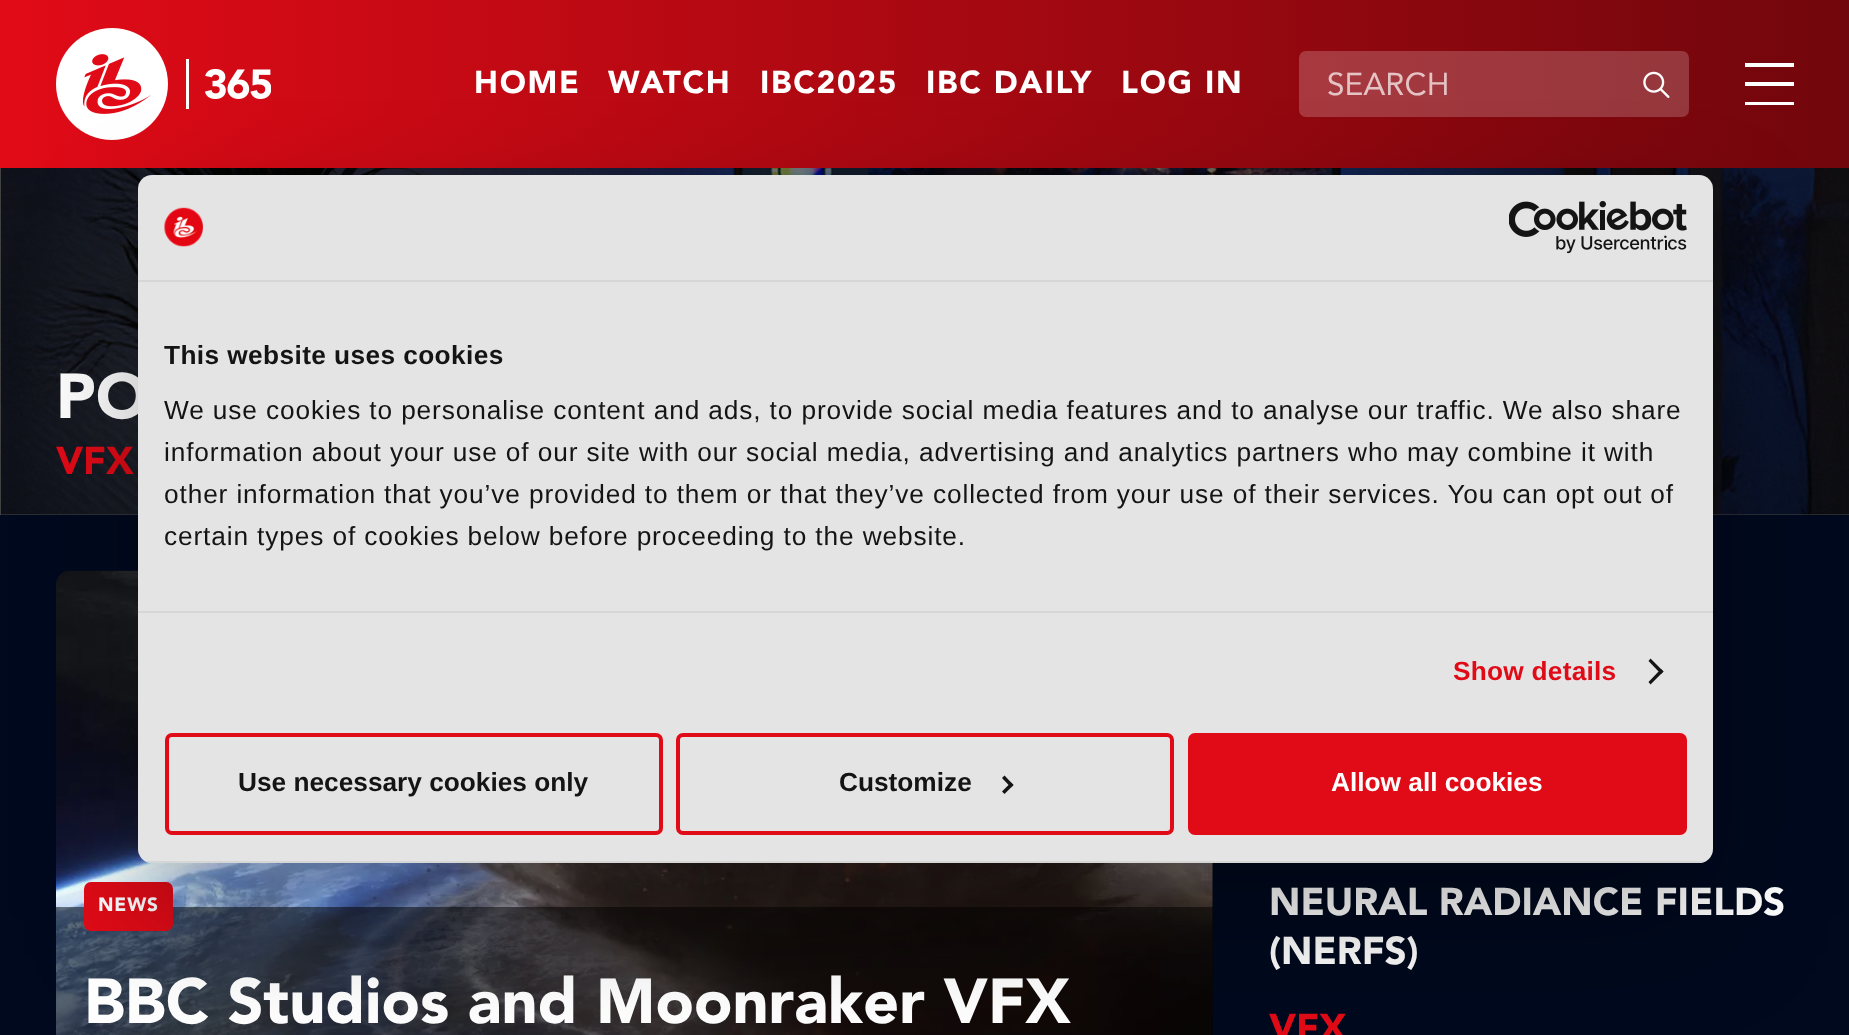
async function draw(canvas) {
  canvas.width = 1849
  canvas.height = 1035
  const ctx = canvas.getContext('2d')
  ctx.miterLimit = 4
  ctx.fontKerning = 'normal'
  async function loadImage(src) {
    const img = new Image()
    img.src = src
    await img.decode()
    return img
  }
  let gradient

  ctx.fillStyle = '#00091e'
  ctx.fillRect(0, 0, 1849, 1035)
  gradient = ctx.createLinearGradient(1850, 84, 0, 84)
  gradient.addColorStop(0, '#71060c')
  gradient.addColorStop(1, '#e10b17')
  ctx.fillStyle = gradient
  ctx.fillRect(0, 0, 1849, 168)
  ctx.drawImage(await loadImage('image0.png'), 56, 28, 215, 112)
  ctx.letterSpacing = '1.75px'
  ctx.font = '900 31.5px Avenir'
  ctx.fillStyle = '#fff'
  ctx.fillText('HOME', 474, 93)
  ctx.fillText('WATCH', 608, 93)
  ctx.fillText('IBC2025', 760, 93)
  ctx.fillText('IBC DAILY', 926, 93)
  ctx.fillText('LOG IN', 1121, 93)
  ctx.fillStyle = '#ffffff33'
  ctx.beginPath()
  ctx.roundRect(1299, 51, 390, 66, 7)
  ctx.fill()
  ctx.letterSpacing = '0px'
  ctx.font = '31.5px Avenir'
  ctx.fillStyle = '#e4c3c5'
  ctx.fillText('SEARCH', 1327, 95)
  ctx.drawImage(await loadImage('image1.png'), 1643, 71, 27, 27)
  ctx.fillStyle = '#fff'
  ctx.fillRect(1745, 82, 49, 4)
  ctx.fillRect(1745, 63, 49, 4)
  ctx.fillRect(1745, 102, 49, 3)
  ctx.fillStyle = '#484846'
  ctx.fillRect(0, 168, 1849, 347)
  ctx.drawImage(await loadImage('image2.png'), 0, 168, 1849, 347)
  ctx.font = '900 63px Avenir'
  ctx.fillStyle = '#fff'
  ctx.fillText('PO', 56, 418)
  ctx.font = '900 38.5px Avenir'
  ctx.fillStyle = '#e10b17'
  ctx.fillText('VFX', 56, 474)
  ctx.drawImage(await loadImage('image3.png'), 56, 570, 1157, 465)
  ctx.fillStyle = '#00000080'
  ctx.fillRect(56, 907, 1157, 128)
  ctx.fillStyle = '#e10b17'
  ctx.beginPath()
  ctx.roundRect(84, 882, 89, 49, 7)
  ctx.fill()
  ctx.letterSpacing = '0.88px'
  ctx.font = '900 19px Avenir'
  ctx.fillStyle = '#fff'
  ctx.fillText('NEWS', 98, 911)
  ctx.letterSpacing = '0px'
  ctx.font = '900 63px Avenir'
  ctx.fillText('BBC Studios and Moonraker VFX', 84, 1023)
  ctx.font = '900 38.5px Avenir'
  ctx.fillText('NEURAL RADIANCE FIELDS', 1269, 915)
  ctx.fillText('(NERFS)', 1269, 964)
  ctx.fillStyle = '#e10b17'
  ctx.fillText('VFX', 1269, 1041)
  ctx.fillStyle = '#0000004d'
  ctx.filter = 'blur(59.5px)'
  ctx.beginPath()
  ctx.roundRect(138, 231, 1575, 688, 14)
  ctx.fill()
  ctx.filter = 'none'
  ctx.fillStyle = '#e4e4e4'
  ctx.beginPath()
  ctx.roundRect(138, 175, 1575, 688, 14)
  ctx.fill()
  ctx.fillStyle = '#d6d6d6'
  ctx.fillRect(138, 280, 1575, 2)
  ctx.drawImage(await loadImage('image4.png'), 164, 207, 39, 40)
  ctx.drawImage(await loadImage('image5.png'), 1509, 201, 178, 53)
  ctx.fillRect(138, 611, 1575, 2)
  ctx.letterSpacing = '0.4px'
  ctx.font = 'bold 26.25px Liberation Sans'
  ctx.fillStyle = '#141414'
  ctx.fillText('This website uses cookies', 164, 364)
  ctx.letterSpacing = '0.88px'
  ctx.font = '26.25px Liberation Sans'
  ctx.fillText('We use cookies to personalise content and ads, to provide social media features and to analyse our traffic. We also share', 164, 419)
  ctx.fillText('information about your use of our site with our social media, advertising and analytics partners who may combine it with', 164, 461)
  ctx.fillText('other information that you’ve provided to them or that they’ve collected from your use of their services. You can opt out of', 164, 503)
  ctx.fillText('certain types of cookies below before proceeding to the website.', 164, 545)
  ctx.letterSpacing = '0.25px'
  ctx.font = 'bold 26.25px Liberation Sans'
  ctx.fillStyle = '#e10b17'
  ctx.fillText('Show details', 1453, 680)
  ctx.fillStyle = '#141414'
  ctx.beginPath()
  ctx.moveTo(1650.5, 658.5)
  ctx.lineTo(1663.5, 671.5)
  ctx.lineTo(1661, 674)
  ctx.lineTo(1648.5, 661)
  ctx.closePath()
  ctx.fill()
  ctx.beginPath()
  ctx.moveTo(1661, 669)
  ctx.lineTo(1663.5, 671.5)
  ctx.lineTo(1650.5, 684.5)
  ctx.lineTo(1648.5, 682)
  ctx.closePath()
  ctx.fill()
  ctx.save()
  ctx.beginPath()
  ctx.roundRect(138, 175, 1575, 688, 14)
  ctx.clip()
  ctx.fillStyle = '#d6d6d6'
  ctx.fillRect(138, 861, 1575, 2)
  ctx.restore()
  ctx.beginPath()
  ctx.roundRect(167, 735, 494, 98, 5)
  ctx.strokeStyle = '#e10b17'
  ctx.lineWidth = 4
  ctx.stroke()
  ctx.letterSpacing = '0px'
  ctx.fillText('Use necessary cookies only', 238, 791)
  ctx.beginPath()
  ctx.roundRect(678, 735, 494, 98, 5)
  ctx.stroke()
  ctx.fillText('Customize', 839, 791)
  ctx.beginPath()
  ctx.moveTo(1004.5, 775.5)
  ctx.lineTo(1013.5, 785)
  ctx.lineTo(1011, 787.5)
  ctx.lineTo(1002, 778)
  ctx.closePath()
  ctx.fill()
  ctx.beginPath()
  ctx.moveTo(1011, 782.5)
  ctx.lineTo(1013.5, 785)
  ctx.lineTo(1004.5, 794)
  ctx.lineTo(1002, 791.5)
  ctx.closePath()
  ctx.fill()
  ctx.fillStyle = '#e10b17'
  ctx.beginPath()
  ctx.roundRect(1190, 735, 495, 98, 5)
  ctx.fill()
  ctx.stroke()
  ctx.fillStyle = '#fff'
  ctx.fillText('Allow all cookies', 1331, 791)
}

draw(document.querySelector('canvas'))
